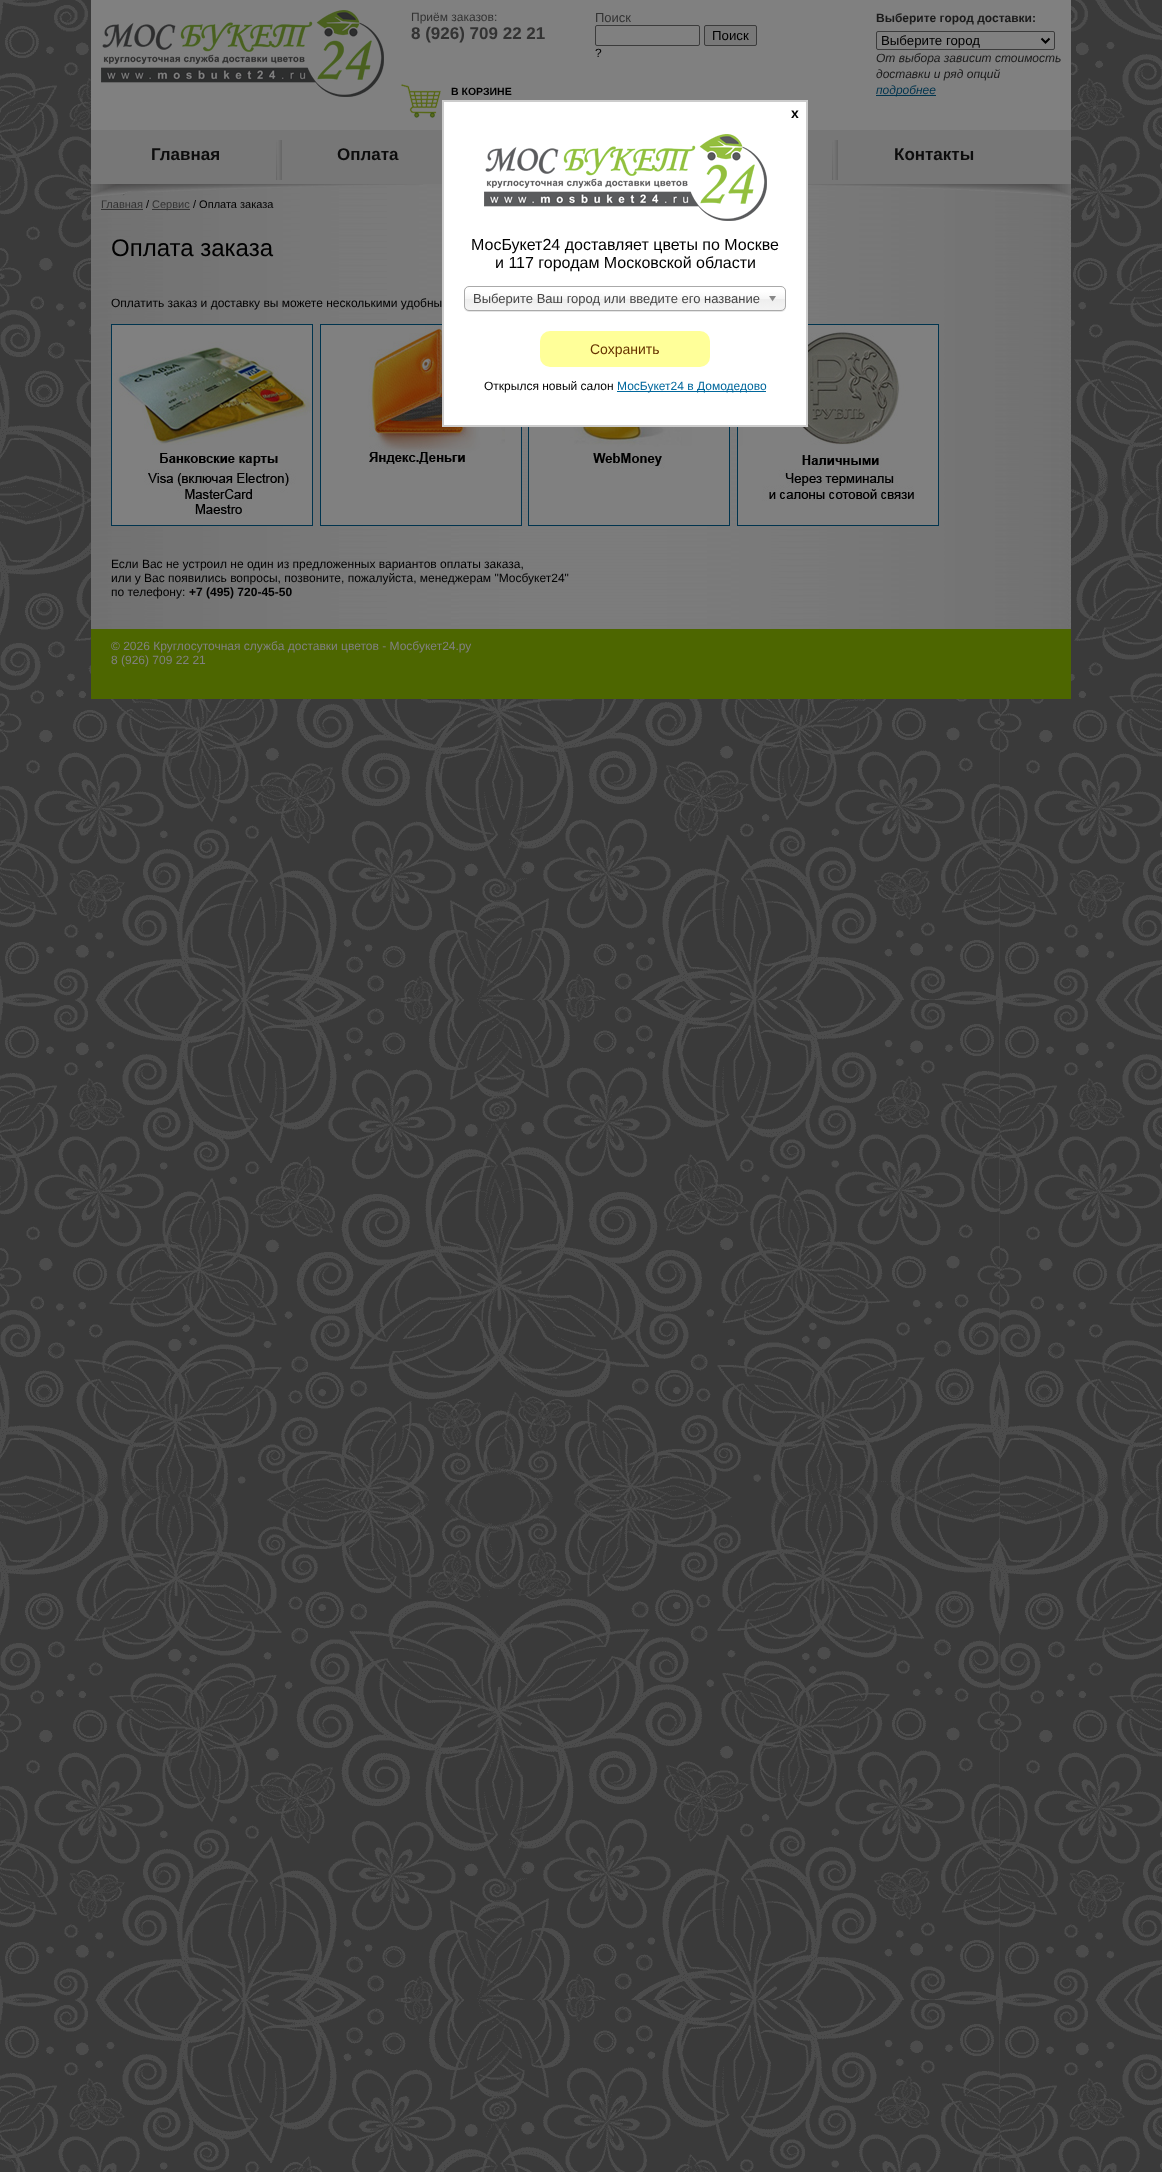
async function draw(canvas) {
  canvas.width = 1162
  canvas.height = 2172
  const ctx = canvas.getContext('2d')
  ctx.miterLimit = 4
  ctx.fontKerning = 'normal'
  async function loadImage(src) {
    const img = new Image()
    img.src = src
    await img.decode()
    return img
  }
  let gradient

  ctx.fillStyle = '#fff'
  ctx.fillRect(0, 0, 1162, 2172)
  ctx.drawImage(await loadImage('image0.png'), 0, 0, 1162, 2172)
  ctx.fillStyle = '#808080'
  ctx.fillRect(91, 0, 980, 130)
  ctx.drawImage(await loadImage('image1.png'), 101, 10, 283, 87)
  ctx.font = '12px Liberation Sans'
  ctx.fillStyle = '#333'
  ctx.fillText('Приём заказов:', 411, 21)
  ctx.font = 'bold 17px Liberation Sans'
  ctx.fillText('8 (926) 709 22 21', 411, 39)
  ctx.font = '13px Liberation Sans'
  ctx.fillText('Поиск', 595, 22)
  ctx.beginPath()
  ctx.roundRect(595.5, 25.5, 104, 20, 1.5)
  ctx.strokeStyle = '#3b3b3b'
  ctx.stroke()
  ctx.fillStyle = '#787878'
  ctx.beginPath()
  ctx.roundRect(704.5, 25.5, 52, 20, 1.5)
  ctx.fill()
  ctx.stroke()
  ctx.font = '13.25px Liberation Sans'
  ctx.fillStyle = '#000'
  ctx.fillText('Поиск', 712, 40)
  ctx.font = '12px Liberation Sans'
  ctx.fillText('?', 595, 57)
  ctx.drawImage(await loadImage('image2.png'), 401, 84, 40, 34)
  ctx.font = 'bold 10.5px Liberation Sans'
  ctx.fillText('В КОРЗИНЕ', 451, 95)
  ctx.font = 'bold 12px Liberation Sans'
  ctx.fillStyle = '#1a1a1a'
  ctx.fillText('Выберите город доставки:', 876, 22)
  ctx.beginPath()
  ctx.roundRect(876.5, 31.5, 178, 18, 1.5)
  ctx.stroke()
  ctx.beginPath()
  ctx.moveTo(1041.5, 38.5)
  ctx.lineTo(1045.5, 42.5)
  ctx.lineTo(1049.5, 38.5)
  ctx.strokeStyle = '#000'
  ctx.lineWidth = 2
  ctx.stroke()
  ctx.font = '13.25px Liberation Sans'
  ctx.fillStyle = '#000'
  ctx.fillText('Выберите город', 881, 45)
  ctx.font = 'italic 12px Liberation Sans'
  ctx.fillStyle = '#1a1a1a'
  ctx.fillText('От выбора зависит стоимость', 876, 62)
  ctx.fillText('доставки и ряд опций', 876, 78)
  ctx.fillStyle = '#00344e'
  ctx.fillRect(876, 95, 60, 1)
  ctx.fillText('подробнее', 876, 94)
  ctx.fillStyle = '#777'
  ctx.fillRect(91, 130, 980, 54)
  ctx.font = 'bold 17px Liberation Sans'
  ctx.fillStyle = '#0d0d0d'
  ctx.fillText('Главная', 151, 160)
  ctx.drawImage(await loadImage('image3.png'), 276, 140, 6, 40)
  ctx.fillText('Оплата', 337, 160)
  ctx.drawImage(await loadImage('image3.png'), 832, 140, 6, 40)
  ctx.fillText('Контакты', 894, 160)
  ctx.drawImage(await loadImage('image4.png'), 91, 184, 980, 445)
  ctx.drawImage(await loadImage('image5.png'), 91, 184, 980, 14)
  ctx.font = '11px Liberation Sans'
  ctx.fillStyle = '#333'
  ctx.fillText('Главная', 101, 208)
  ctx.fillRect(101, 209, 42, 1)
  ctx.fillStyle = '#000'
  ctx.fillText('/', 146, 208)
  ctx.fillStyle = '#333'
  ctx.fillRect(152, 209, 38, 1)
  ctx.fillText('Сервис', 152, 208)
  ctx.fillStyle = '#000'
  ctx.fillText('/ Оплата заказа', 193, 208)
  ctx.font = '24px Liberation Sans'
  ctx.fillText('Оплата заказа', 111, 256)
  ctx.font = '12px Liberation Sans'
  ctx.fillText('Оплатить заказ и доставку вы можете несколькими удобны', 111, 307)
  ctx.strokeStyle = '#00344e'
  ctx.lineWidth = 1
  ctx.strokeRect(111.5, 324.5, 201, 201)
  ctx.strokeRect(320.5, 324.5, 201, 201)
  ctx.strokeRect(528.5, 324.5, 201, 201)
  ctx.strokeRect(737.5, 324.5, 201, 201)
  ctx.drawImage(await loadImage('image6.png'), 112, 325, 200, 200)
  ctx.drawImage(await loadImage('image7.png'), 321, 325, 200, 200)
  ctx.drawImage(await loadImage('image8.png'), 529, 427, 200, 98)
  ctx.drawImage(await loadImage('image9.png'), 738, 325, 200, 200)
  ctx.fillText('Если Вас не устроил не один из предложенных вариантов оплаты заказа,', 111, 568)
  ctx.fillText('или у Вас появились вопросы, позвоните, пожалуйста, менеджерам "Мосбукет24"', 111, 582)
  ctx.fillText('по телефону:', 111, 596)
  ctx.font = 'bold 12px Liberation Sans'
  ctx.fillText('+7 (495) 720-45-50', 189, 596)
  ctx.fillStyle = '#fff'
  ctx.beginPath()
  ctx.rect(443, 101, 364, 325)
  ctx.fill()
  ctx.strokeStyle = '#ccc'
  ctx.lineWidth = 2
  ctx.stroke()
  ctx.font = 'bold 14px Liberation Sans'
  ctx.fillStyle = '#000'
  ctx.fillText('x', 791, 118)
  ctx.drawImage(await loadImage('image10.png'), 484, 134, 283, 87)
  ctx.font = '16px Liberation Sans'
  ctx.fillText('МосБукет24 доставляет цветы по Москве', 471, 250)
  ctx.fillText('и 117 городам Московской области', 495, 268)
  ctx.fillStyle = '#0000001a'
  ctx.filter = 'blur(0.5px)'
  ctx.beginPath()
  ctx.roundRect(464, 287, 322, 25, 5)
  ctx.fill()
  ctx.filter = 'none'
  gradient = ctx.createLinearGradient(625, 287, 625, 310)
  gradient.addColorStop(0.2, '#fff')
  gradient.addColorStop(0.5, '#f6f6f6')
  gradient.addColorStop(0.52, '#eee')
  gradient.addColorStop(1, '#f4f4f4')
  ctx.fillStyle = gradient
  ctx.beginPath()
  ctx.roundRect(465, 287, 320, 23, 4)
  ctx.fill()
  ctx.beginPath()
  ctx.roundRect(464.5, 286.5, 321, 24, 4.5)
  ctx.strokeStyle = '#aaa'
  ctx.lineWidth = 1
  ctx.stroke()
  ctx.font = '13px Liberation Sans'
  ctx.fillStyle = '#444'
  ctx.fillText('Выберите Ваш город или введите его название', 473, 303)
  ctx.drawImage(await loadImage('image11.png'), 769, 296, 7, 6)
  ctx.fillStyle = '#ff9'
  ctx.beginPath()
  ctx.roundRect(540, 331, 170, 36, 10)
  ctx.fill()
  ctx.font = '14px Liberation Sans'
  ctx.fillStyle = '#630'
  ctx.fillText('Сохранить', 590, 354)
  ctx.font = '12px Liberation Sans'
  ctx.fillStyle = '#000'
  ctx.fillText('Открылся новый салон', 484, 390)
  ctx.fillStyle = '#00679c'
  ctx.fillRect(617, 391, 149, 1)
  ctx.fillText('МосБукет24 в Домодедово', 617, 390)
  ctx.fillStyle = '#4d6600'
  ctx.fillRect(91, 629, 980, 70)
  ctx.fillStyle = '#808080'
  ctx.fillText('© 2026 Круглосуточная служба доставки цветов - Мосбукет24.ру', 111, 650)
  ctx.fillText('8 (926) 709 22 21', 111, 664)
}

draw(document.querySelector('canvas'))
